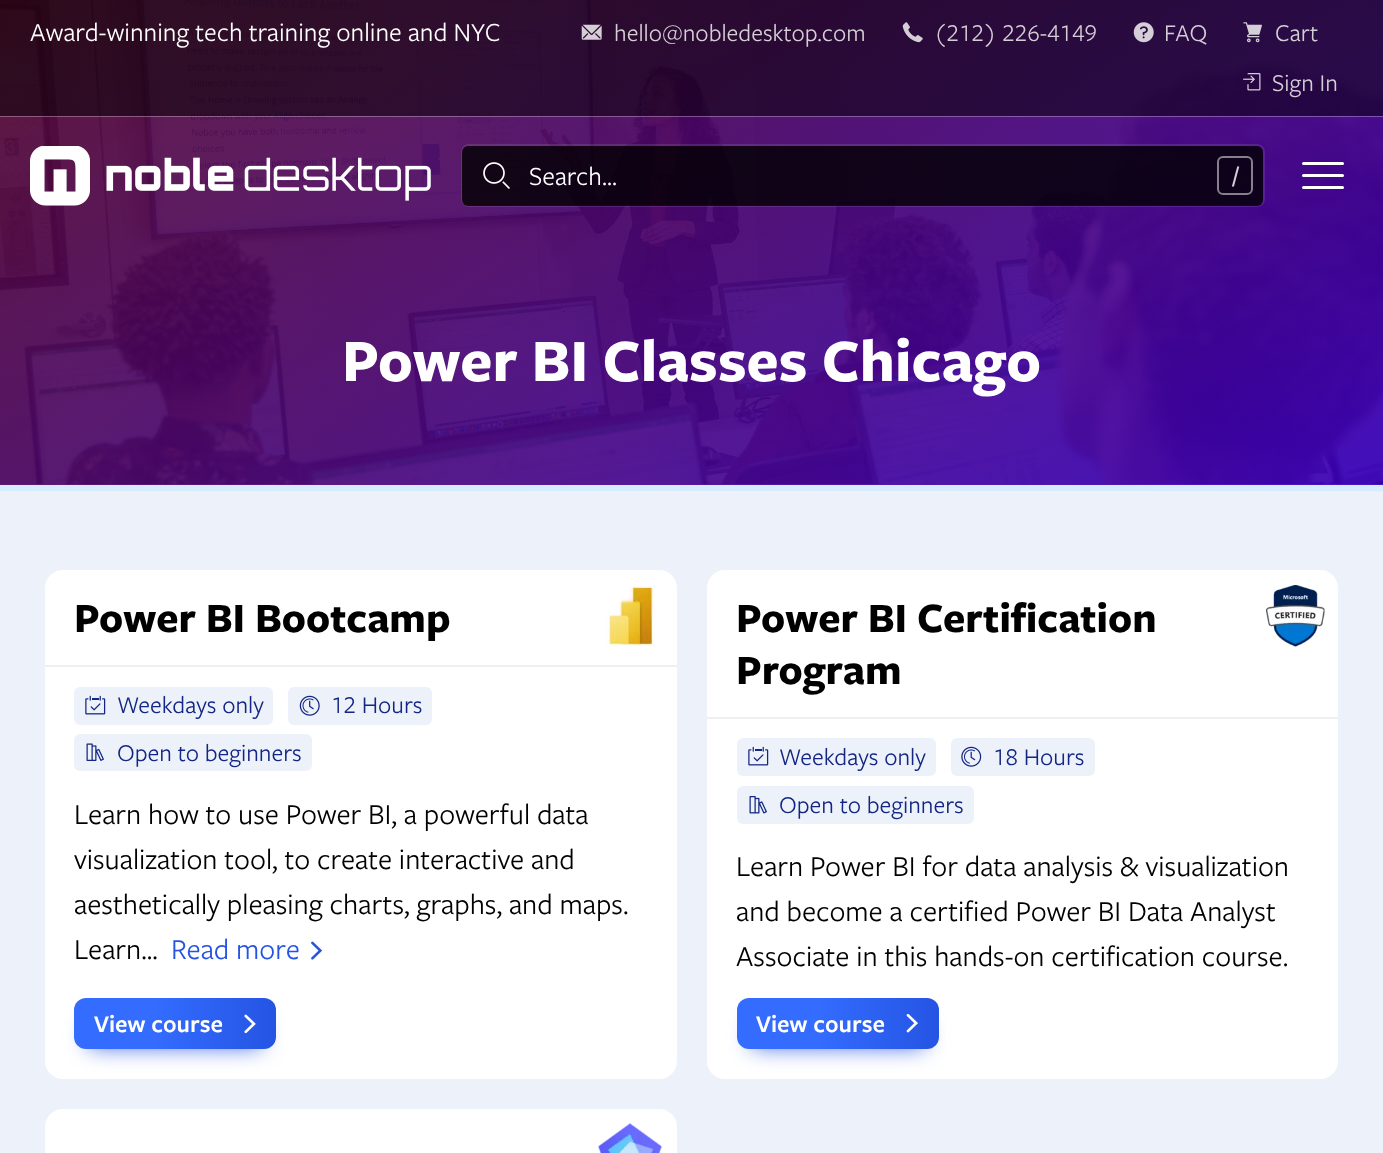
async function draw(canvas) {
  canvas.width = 1383
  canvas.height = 1153
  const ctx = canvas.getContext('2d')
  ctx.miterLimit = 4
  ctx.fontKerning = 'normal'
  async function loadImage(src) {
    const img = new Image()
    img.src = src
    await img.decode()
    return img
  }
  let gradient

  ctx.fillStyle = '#fff'
  ctx.fillRect(0, 0, 1383, 1153)
  ctx.drawImage(await loadImage('image0.png'), 0, 0, 1383, 485)
  gradient = ctx.createLinearGradient(414, -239, 969, 723)
  gradient.addColorStop(0, '#55072be6')
  gradient.addColorStop(1, '#3c00bde6')
  ctx.fillStyle = gradient
  ctx.fillRect(0, 0, 1383, 485)
  ctx.fillStyle = '#ffffff4d'
  ctx.fillRect(0, 116, 1383, 1)
  ctx.fillStyle = '#00000080'
  ctx.fillRect(0, 0, 1383, 116)
  ctx.font = '27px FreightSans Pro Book'
  ctx.fillStyle = '#fff'
  ctx.fillText('Award-winning tech training online and NYC', 30, 41)
  ctx.drawImage(await loadImage('image1.png'), 581, 24, 21, 16)
  ctx.font = '25px FreightSans Pro Book'
  ctx.fillStyle = '#d4ced6'
  ctx.fillText('hello@nobledesktop.com', 614, 41)
  ctx.drawImage(await loadImage('image2.png'), 902, 22, 21, 21)
  ctx.font = '25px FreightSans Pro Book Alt'
  ctx.fillText('(212) 226-4149', 934, 41)
  ctx.drawImage(await loadImage('image3.png'), 1133, 22, 21, 21)
  ctx.font = '25px FreightSans Pro Book'
  ctx.fillText('FAQ', 1164, 41)
  ctx.drawImage(await loadImage('image4.png'), 1243, 22, 19, 21)
  ctx.fillText('Cart', 1275, 41)
  ctx.drawImage(await loadImage('image5.png'), 1243, 73, 18, 18)
  ctx.fillText('Sign In', 1272, 91)
  ctx.drawImage(await loadImage('image6.png'), 30, 146, 401, 60)
  ctx.beginPath()
  ctx.roundRect(462, 145, 802, 61, 7)
  ctx.strokeStyle = '#ffffff1a'
  ctx.lineWidth = 2
  ctx.stroke()
  ctx.fillStyle = '#000000cc'
  ctx.beginPath()
  ctx.roundRect(462, 146, 801, 60, 6)
  ctx.fill()
  ctx.drawImage(await loadImage('image7.png'), 483, 162, 27, 27)
  ctx.font = '27px FreightSans Pro Book'
  ctx.fillStyle = '#fff'
  ctx.fillText('Search...', 529, 185)
  ctx.beginPath()
  ctx.roundRect(1218, 157, 34, 37, 5)
  ctx.strokeStyle = '#86808d'
  ctx.stroke()
  ctx.font = '600 22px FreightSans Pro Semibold'
  ctx.fillStyle = '#d4ced6'
  ctx.fillText('/', 1233, 182)
  ctx.fillStyle = '#fff'
  ctx.beginPath()
  ctx.roundRect(1302, 162, 42, 3, 1.5)
  ctx.fill()
  ctx.beginPath()
  ctx.roundRect(1302, 174, 42, 3, 1.5)
  ctx.fill()
  ctx.beginPath()
  ctx.roundRect(1302, 186, 42, 3, 1.5)
  ctx.fill()
  ctx.font = 'bold 62.25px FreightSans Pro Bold'
  ctx.fillText('Power BI Classes Chicago', 342, 381)
  ctx.fillStyle = '#edf2fa'
  ctx.fillRect(0, 491, 1383, 662)
  ctx.fillStyle = '#d5ebff'
  ctx.fillRect(0, 485, 1383, 6)
  ctx.fillStyle = '#fff'
  ctx.beginPath()
  ctx.roundRect(45, 570, 632, 509, 18)
  ctx.fill()
  ctx.fillStyle = '#efeff2'
  ctx.fillRect(45, 665, 632, 2)
  ctx.font = 'bold 43.25px FreightSans Pro Bold'
  ctx.fillStyle = '#000'
  ctx.fillText('Power BI Bootcamp', 74, 632)
  ctx.drawImage(await loadImage('image8.png'), 605, 585, 50, 62)
  ctx.fillStyle = '#edf2fa'
  ctx.beginPath()
  ctx.roundRect(74, 687, 199, 38, 6)
  ctx.fill()
  ctx.drawImage(await loadImage('image9.png'), 85, 695, 21, 20)
  ctx.font = '25px FreightSans Pro Book'
  ctx.fillStyle = '#132683'
  ctx.fillText('Weekdays only', 117, 713)
  ctx.fillStyle = '#edf2fa'
  ctx.beginPath()
  ctx.roundRect(288, 687, 144, 38, 6)
  ctx.fill()
  ctx.drawImage(await loadImage('image10.png'), 299, 695, 21, 21)
  ctx.font = '25px FreightSans Pro Book Alt'
  ctx.fillStyle = '#132683'
  ctx.fillText('12 Hours', 331, 713)
  ctx.fillStyle = '#edf2fa'
  ctx.beginPath()
  ctx.roundRect(74, 734, 238, 37, 6)
  ctx.fill()
  ctx.drawImage(await loadImage('image11.png'), 86, 743, 18, 18)
  ctx.font = '25px FreightSans Pro Book'
  ctx.fillStyle = '#132683'
  ctx.fillText('Open to beginners', 117, 761)
  ctx.font = '30px FreightSans Pro Book'
  ctx.fillStyle = '#000'
  ctx.fillText('Learn how to use Power BI, a powerful data', 74, 824)
  ctx.fillText('visualization tool, to create interactive and', 74, 869)
  ctx.fillText('aesthetically pleasing charts, graphs, and maps.', 74, 914)
  ctx.fillText('Learn...', 74, 959)
  ctx.fillStyle = '#2554e3'
  ctx.fillText('Read more', 171, 959)
  ctx.drawImage(await loadImage('image12.png'), 311, 941, 12, 19)
  ctx.filter = 'blur(11px)'
  ctx.beginPath()
  ctx.rect(89, 1025, 172, 21)
  ctx.fill()
  ctx.filter = 'none'
  gradient = ctx.createLinearGradient(74, 1023, 884, 1023)
  gradient.addColorStop(0.1, '#336cff')
  gradient.addColorStop(0.25, '#2554e3')
  gradient.addColorStop(0.38, '#b2d6ff')
  gradient.addColorStop(0.62, '#80b2ff')
  gradient.addColorStop(0.75, '#d5ebff')
  gradient.addColorStop(1, '#b2d6ff')
  ctx.fillStyle = gradient
  ctx.beginPath()
  ctx.roundRect(74, 998, 202, 51, 12)
  ctx.fill()
  ctx.font = '600 25px FreightSans Pro Semibold'
  ctx.fillStyle = '#fff'
  ctx.fillText('View course', 94, 1032)
  ctx.drawImage(await loadImage('image13.png'), 244, 1014, 12, 20)
  ctx.beginPath()
  ctx.roundRect(707, 570, 631, 509, 18)
  ctx.fill()
  ctx.fillStyle = '#efeff2'
  ctx.fillRect(707, 717, 631, 2)
  ctx.font = 'bold 43.25px FreightSans Pro Bold'
  ctx.fillStyle = '#000'
  ctx.fillText('Power BI Certification', 736, 632)
  ctx.fillText('Program', 736, 684)
  ctx.drawImage(await loadImage('image14.png'), 1266, 585, 59, 62)
  ctx.fillStyle = '#edf2fa'
  ctx.beginPath()
  ctx.roundRect(737, 738, 199, 38, 6)
  ctx.fill()
  ctx.drawImage(await loadImage('image9.png'), 748, 746, 21, 20)
  ctx.font = '25px FreightSans Pro Book'
  ctx.fillStyle = '#132683'
  ctx.fillText('Weekdays only', 779, 765)
  ctx.fillStyle = '#edf2fa'
  ctx.beginPath()
  ctx.roundRect(951, 738, 144, 38, 6)
  ctx.fill()
  ctx.drawImage(await loadImage('image15.png'), 961, 746, 21, 21)
  ctx.font = '25px FreightSans Pro Book Alt'
  ctx.fillStyle = '#132683'
  ctx.fillText('18 Hours', 993, 765)
  ctx.fillStyle = '#edf2fa'
  ctx.beginPath()
  ctx.roundRect(737, 786, 237, 38, 6)
  ctx.fill()
  ctx.drawImage(await loadImage('image16.png'), 749, 796, 18, 18)
  ctx.font = '25px FreightSans Pro Book'
  ctx.fillStyle = '#132683'
  ctx.fillText('Open to beginners', 779, 813)
  ctx.font = '30px FreightSans Pro Book'
  ctx.fillStyle = '#000'
  ctx.fillText('Learn Power BI for data analysis & visualization', 736, 876)
  ctx.fillText('and become a certified Power BI Data Analyst', 736, 921)
  ctx.fillText('Associate in this hands-on certification course.', 736, 966)
  ctx.fillStyle = '#2554e3'
  ctx.filter = 'blur(11px)'
  ctx.beginPath()
  ctx.rect(752, 1025, 172, 21)
  ctx.fill()
  ctx.filter = 'none'
  gradient = ctx.createLinearGradient(737, 1023, 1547, 1023)
  gradient.addColorStop(0.1, '#336cff')
  gradient.addColorStop(0.25, '#2554e3')
  gradient.addColorStop(0.38, '#b2d6ff')
  gradient.addColorStop(0.62, '#80b2ff')
  gradient.addColorStop(0.75, '#d5ebff')
  gradient.addColorStop(1, '#b2d6ff')
  ctx.fillStyle = gradient
  ctx.beginPath()
  ctx.roundRect(737, 998, 202, 51, 12)
  ctx.fill()
  ctx.font = '600 25px FreightSans Pro Semibold'
  ctx.fillStyle = '#fff'
  ctx.fillText('View course', 756, 1032)
  ctx.drawImage(await loadImage('image17.png'), 906, 1013, 12, 20)
  ctx.beginPath()
  ctx.roundRect(45, 1109, 632, 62, 18)
  ctx.fill()
  ctx.drawImage(await loadImage('image18.png'), 598, 1123, 64, 30)
}

draw(document.querySelector('canvas'))
